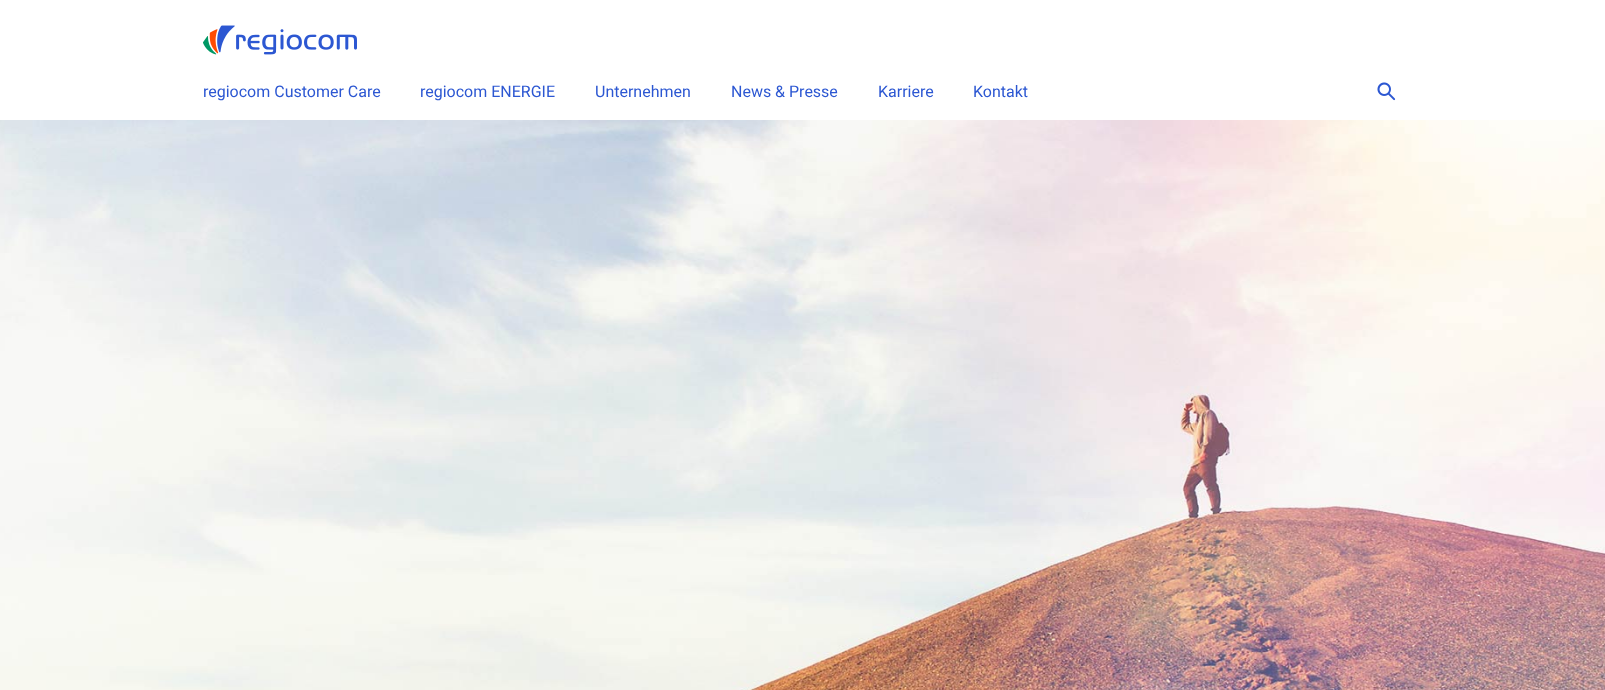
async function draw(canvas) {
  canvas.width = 1605
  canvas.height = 690
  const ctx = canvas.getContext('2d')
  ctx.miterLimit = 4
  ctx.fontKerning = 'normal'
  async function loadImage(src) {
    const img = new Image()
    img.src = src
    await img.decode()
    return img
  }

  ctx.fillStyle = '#fff'
  ctx.fillRect(0, 0, 1605, 690)
  ctx.drawImage(await loadImage('image0.png'), 203, 25, 154, 30)
  ctx.font = '16px Roboto'
  ctx.fillStyle = '#2c57d2'
  ctx.fillText('regiocom Customer Care', 203, 97)
  ctx.fillText('regiocom ENERGIE', 420, 97)
  ctx.fillText('Unternehmen', 595, 97)
  ctx.fillText('News & Presse', 731, 97)
  ctx.fillText('Karriere', 878, 97)
  ctx.fillText('Kontakt', 973, 97)
  ctx.drawImage(await loadImage('image1.png'), 1377, 82, 19, 19)
  ctx.drawImage(await loadImage('image2.png'), 0, 120, 1605, 570)
}

draw(document.querySelector('canvas'))
